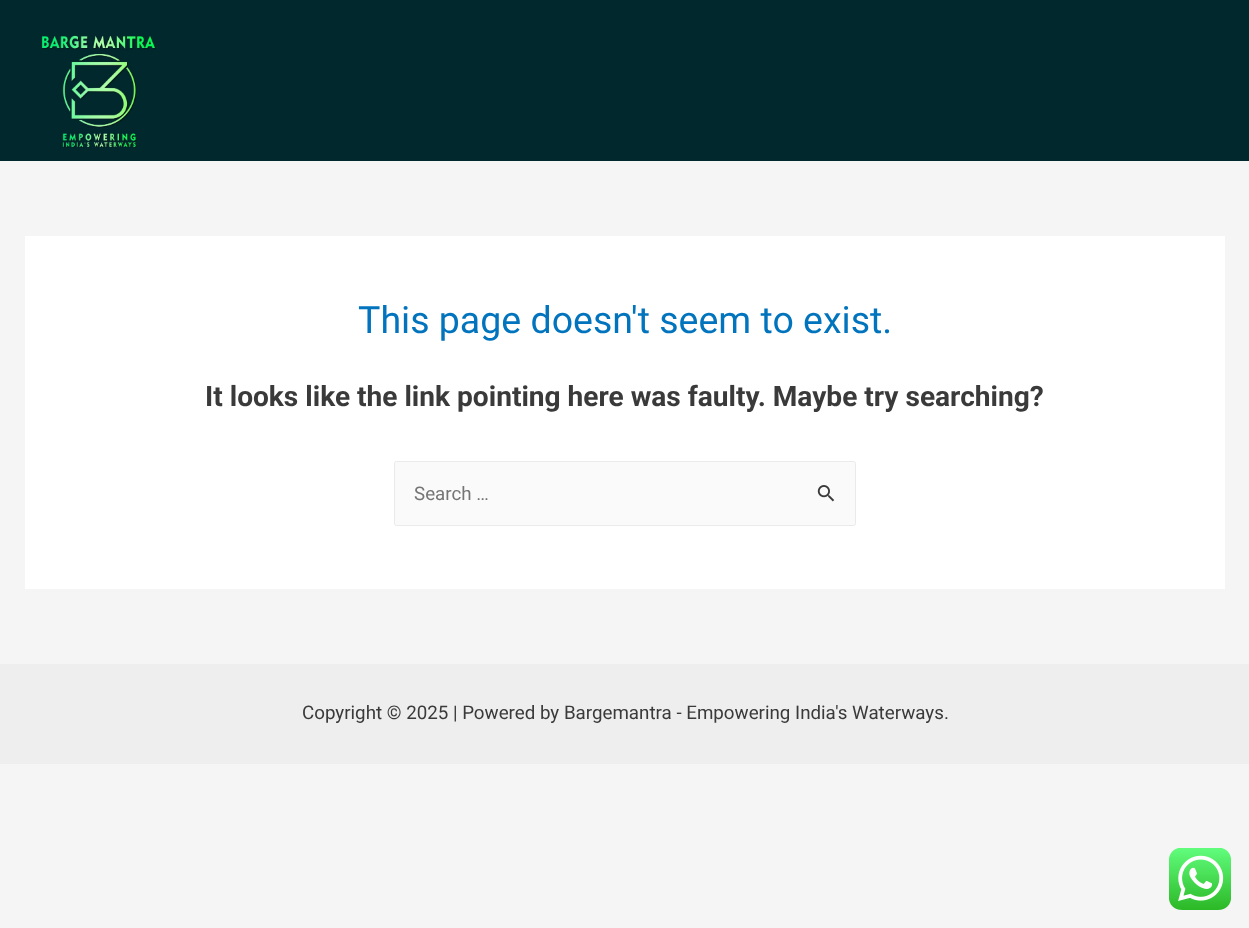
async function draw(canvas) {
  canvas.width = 1249
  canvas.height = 928
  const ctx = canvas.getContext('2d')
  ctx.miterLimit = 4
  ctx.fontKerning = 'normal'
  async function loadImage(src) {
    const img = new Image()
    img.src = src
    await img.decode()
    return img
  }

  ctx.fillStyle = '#f5f5f5'
  ctx.fillRect(0, 0, 1249, 928)
  ctx.fillStyle = '#01282d'
  ctx.fillRect(0, 0, 1249, 161)
  ctx.drawImage(await loadImage('image0.png'), 41, 35, 115, 113)
  ctx.fillStyle = '#fff'
  ctx.fillRect(25, 236, 1200, 353)
  ctx.font = '37.5px Roboto'
  ctx.fillStyle = '#0274be'
  ctx.fillText('This page doesn\'t seem to exist.', 358, 333)
  ctx.font = 'bold 28.1px Roboto'
  ctx.fillStyle = '#3a3a3a'
  ctx.fillText('It looks like the link pointing here was faulty. Maybe try searching?', 205, 406)
  ctx.fillStyle = '#fafafa'
  ctx.beginPath()
  ctx.roundRect(394.5, 461.5, 461, 64, 2)
  ctx.fill()
  ctx.strokeStyle = '#eaeaea'
  ctx.stroke()
  ctx.font = '18.75px Roboto'
  ctx.fillStyle = '#757575'
  ctx.fillText('Search …', 414, 500)
  ctx.drawImage(await loadImage('image1.png'), 817, 485, 18, 17)
  ctx.fillStyle = '#eee'
  ctx.fillRect(0, 664, 1249, 100)
  ctx.fillStyle = '#3a3a3a'
  ctx.fillText('Copyright © 2025 | Powered by Bargemantra - Empowering India\'s Waterways.', 302, 719)
  ctx.drawImage(await loadImage('image2.png'), 1169, 848, 62, 62)
}

draw(document.querySelector('canvas'))
